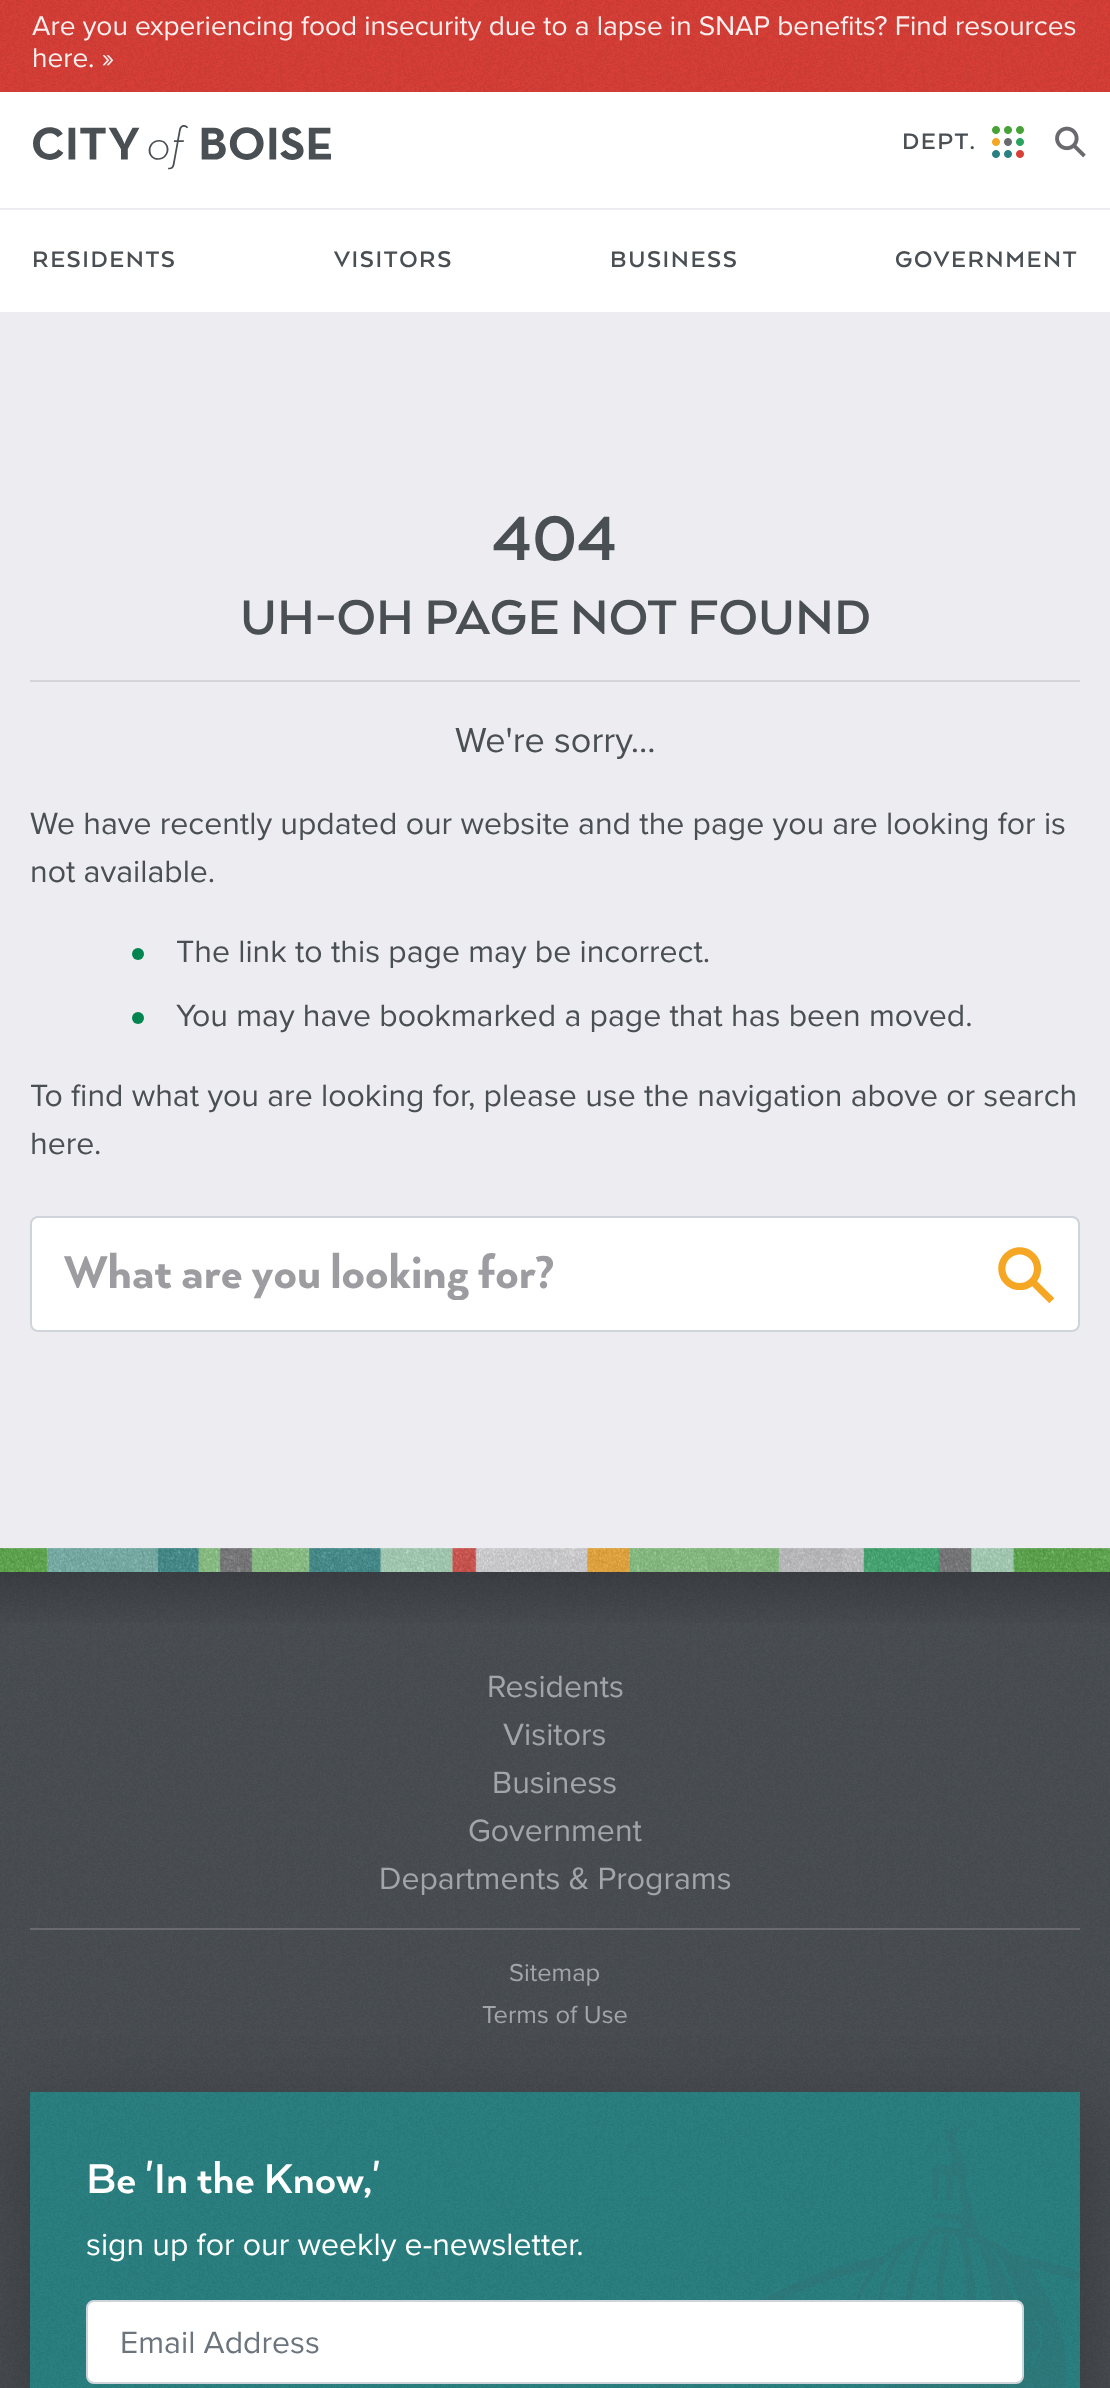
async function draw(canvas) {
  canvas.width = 1110
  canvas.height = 2388
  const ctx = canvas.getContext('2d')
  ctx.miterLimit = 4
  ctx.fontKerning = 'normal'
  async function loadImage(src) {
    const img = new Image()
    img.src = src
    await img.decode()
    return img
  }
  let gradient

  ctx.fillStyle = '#ededf1'
  ctx.fillRect(0, 0, 1110, 2388)
  ctx.fillStyle = '#d73f37'
  ctx.fillRect(0, 0, 1110, 92)
  ctx.drawImage(await loadImage('image0.png'), 0, 0, 1110, 92)
  ctx.font = '28px Proxima Nova'
  ctx.fillStyle = '#fbefef'
  ctx.fillText('Are you experiencing food insecurity due to a lapse in SNAP benefits? Find resources', 32, 35)
  ctx.fillText('here. »', 32, 67)
  ctx.fillStyle = '#fff'
  ctx.fillRect(0, 92, 1110, 220)
  ctx.drawImage(await loadImage('image1.png'), 33, 125, 298, 45)
  ctx.letterSpacing = '1.6px'
  ctx.font = 'bold 26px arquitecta'
  ctx.fillStyle = '#4a4f54'
  ctx.fillText('DEPT.', 902, 149)
  ctx.drawImage(await loadImage('image2.png'), 992, 126, 32, 32)
  ctx.drawImage(await loadImage('image3.png'), 1055, 126, 31, 32)
  ctx.fillStyle = '#ededf1'
  ctx.fillRect(0, 208, 1110, 2)
  ctx.fillStyle = '#4a4f54'
  ctx.fillText('RESIDENTS', 32, 267)
  ctx.fillText('VISITORS', 334, 267)
  ctx.fillText('BUSINESS', 610, 267)
  ctx.fillText('GOVERNMENT', 895, 267)
  ctx.letterSpacing = '0px'
  ctx.font = 'bold 72px arquitecta'
  ctx.fillText('404', 492, 560)
  ctx.font = 'bold 56px arquitecta'
  ctx.fillText('UH-OH PAGE NOT FOUND', 240, 634)
  ctx.fillStyle = '#d5d5d9'
  ctx.fillRect(30, 680, 1050, 2)
  ctx.font = '36px Proxima Nova'
  ctx.fillStyle = '#4a4f54'
  ctx.fillText('We\'re sorry...', 455, 752)
  ctx.font = '32px Proxima Nova'
  ctx.fillText('We have recently updated our website and the page you are looking for is', 30, 834)
  ctx.fillText('not available.', 30, 882)
  ctx.fillStyle = '#008550'
  ctx.beginPath()
  ctx.arc(138, 954, 6, 0, 2 * Math.PI)
  ctx.fill()
  ctx.fillStyle = '#4a4f54'
  ctx.fillText('The link to this page may be incorrect.', 176, 962)
  ctx.fillStyle = '#008550'
  ctx.beginPath()
  ctx.arc(138, 1018, 6, 0, 2 * Math.PI)
  ctx.fill()
  ctx.fillStyle = '#4a4f54'
  ctx.fillText('You may have bookmarked a page that has been moved.', 176, 1026)
  ctx.fillText('To find what you are looking for, please use the navigation above or search', 30, 1106)
  ctx.fillText('here.', 30, 1154)
  ctx.fillStyle = '#fff'
  ctx.beginPath()
  ctx.roundRect(31, 1217, 1048, 114, 7)
  ctx.fill()
  ctx.strokeStyle = '#ced4da'
  ctx.lineWidth = 2
  ctx.stroke()
  ctx.save()
  ctx.beginPath()
  ctx.rect(64, 1246, 982, 54)
  ctx.clip()
  ctx.font = '900 52.75px arquitecta'
  ctx.fillStyle = '#9d9da1'
  ctx.fillText('What are you looking for?', 64, 1288)
  ctx.restore()
  ctx.drawImage(await loadImage('image4.png'), 998, 1247, 57, 57)
  ctx.fillStyle = '#4a4f54'
  ctx.fillRect(0, 1572, 1110, 816)
  ctx.drawImage(await loadImage('image5.png'), 0, 1572, 1110, 816)
  ctx.drawImage(await loadImage('image6.png'), 0, 1548, 1110, 24)
  gradient = ctx.createLinearGradient(555, 1572, 555, 1632)
  gradient.addColorStop(0, '#00000033')
  gradient.addColorStop(1, '#00000000')
  ctx.fillStyle = gradient
  ctx.fillRect(0, 1572, 1110, 51)
  ctx.fillStyle = '#a3a6a8'
  ctx.fillText('Residents', 487, 1697)
  ctx.fillText('Visitors', 503, 1745)
  ctx.fillText('Business', 492, 1793)
  ctx.fillText('Government', 468, 1841)
  ctx.fillText('Departments & Programs', 379, 1889)
  ctx.fillStyle = '#6a6a6e'
  ctx.fillRect(30, 1928, 1050, 2)
  ctx.font = '25.5px Proxima Nova'
  ctx.fillStyle = '#a3a6a8'
  ctx.fillText('Sitemap', 509, 1981)
  ctx.fillText('Terms of Use', 482, 2023)
  ctx.fillStyle = '#00000040'
  ctx.filter = 'blur(35px)'
  ctx.beginPath()
  ctx.rect(30, 2112, 1050, 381)
  ctx.fill()
  ctx.filter = 'none'
  ctx.fillStyle = '#2b8182'
  ctx.fillRect(30, 2092, 1050, 296)
  ctx.drawImage(await loadImage('image7.png'), 30, 2092, 1050, 296)
  ctx.font = 'bold 48px arquitecta'
  ctx.fillStyle = '#fff'
  ctx.fillText('Be \'In the Know,\'', 86, 2193)
  ctx.font = '32px Proxima Nova'
  ctx.fillText('sign up for our weekly e-newsletter.', 86, 2255)
  ctx.drawImage(await loadImage('image8.png'), 657, 2127, 422, 261)
  ctx.beginPath()
  ctx.roundRect(87, 2301, 936, 82, 7)
  ctx.fill()
  ctx.stroke()
  ctx.fillStyle = '#6c757d'
  ctx.fillText('Email Address', 120, 2353)
}

draw(document.querySelector('canvas'))
